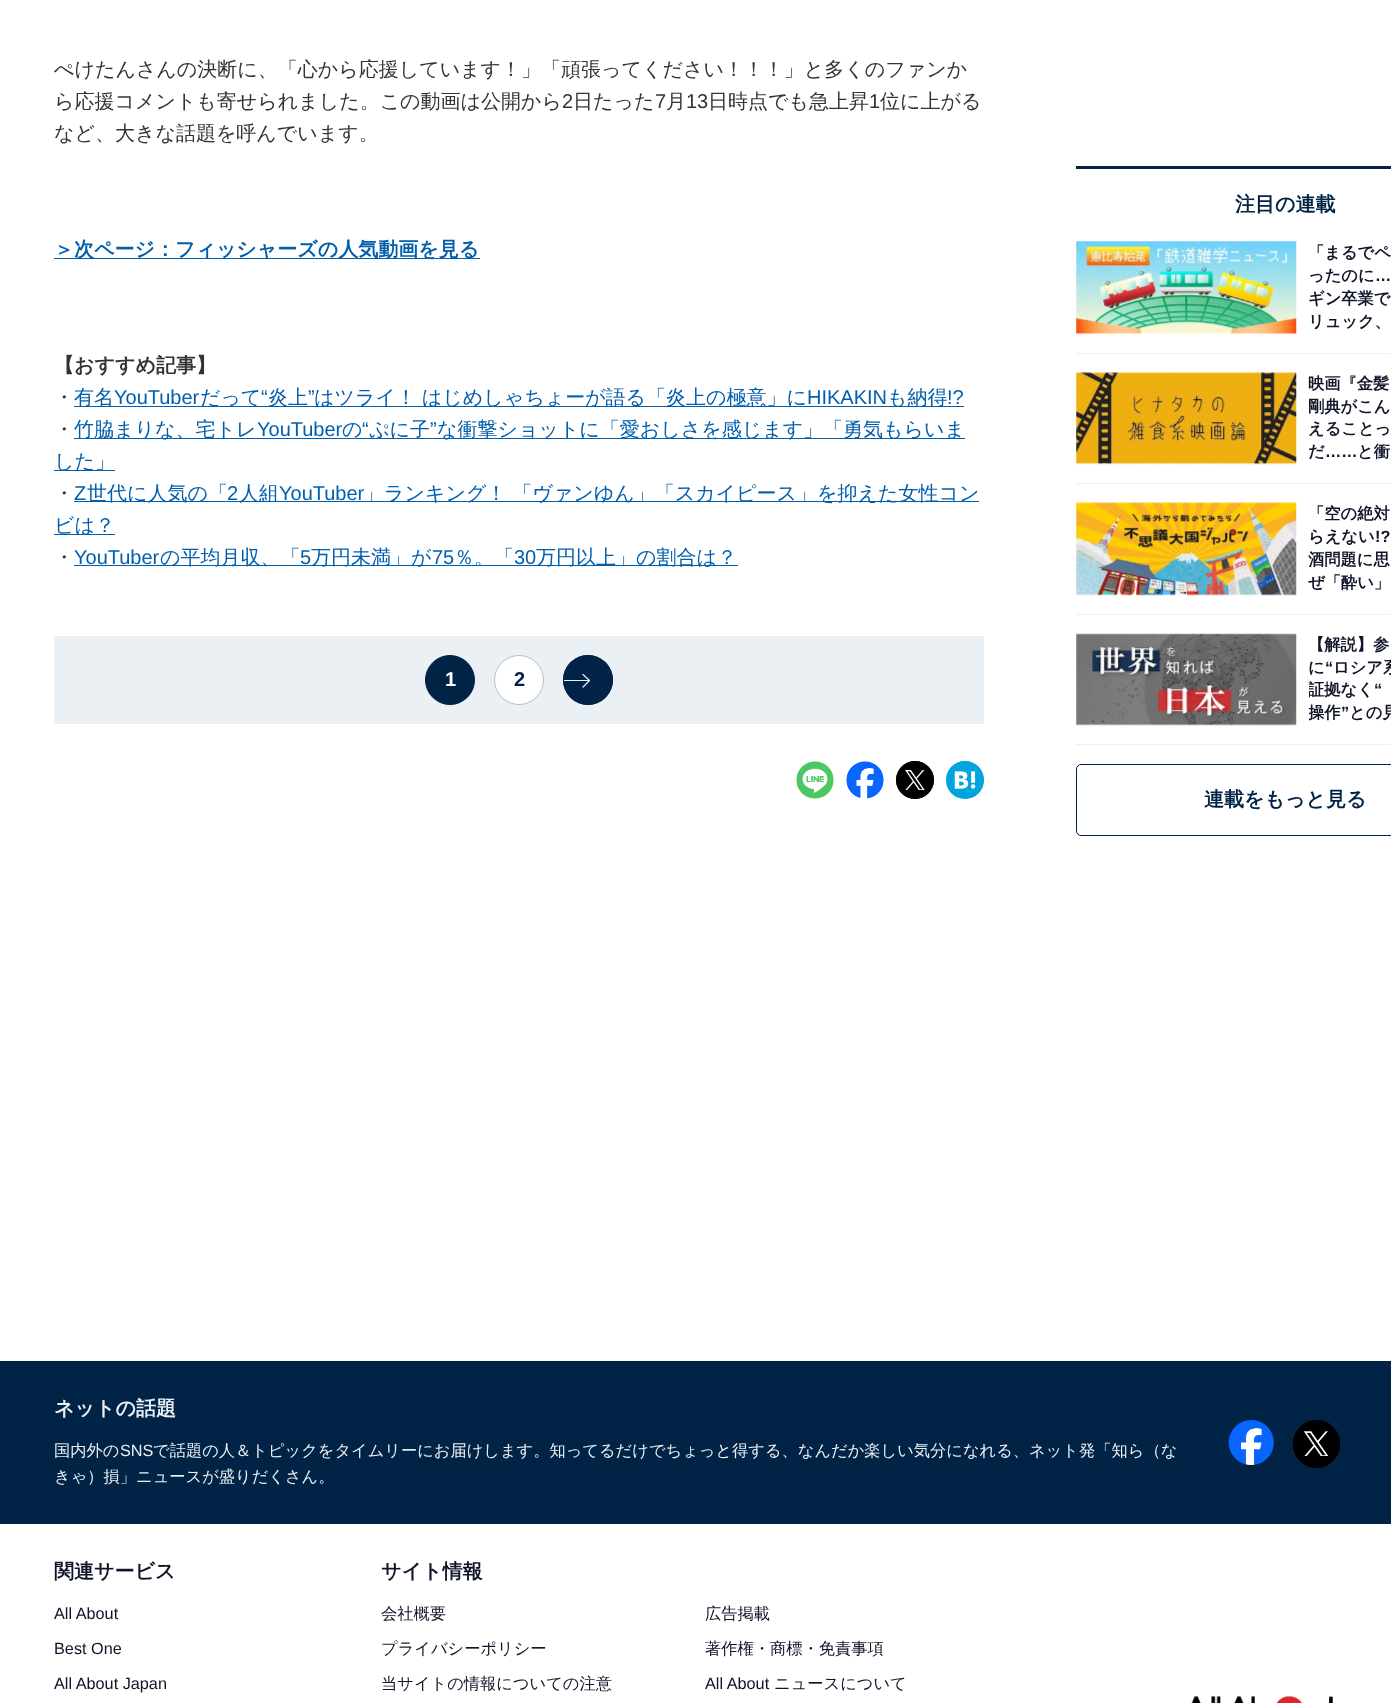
async function draw(canvas) {
  canvas.width = 1391
  canvas.height = 1703
  const ctx = canvas.getContext('2d')
  ctx.miterLimit = 4
  ctx.fontKerning = 'normal'
  async function loadImage(src) {
    const img = new Image()
    img.src = src
    await img.decode()
    return img
  }

  ctx.fillStyle = '#fff'
  ctx.fillRect(0, 0, 1391, 1703)
  ctx.font = '500 20px WenQuanYi Zen Hei'
  ctx.fillStyle = '#333'
  ctx.fillText('ぺけたんさんの決断に、「心から応援しています！」「頑張ってください！！！」と多くのファンか', 54, 76)
  ctx.fillText('ら応援コメントも寄せられました。この動画は公開から', 54, 108)
  ctx.font = '20px Liberation Sans'
  ctx.fillText('2', 562, 108)
  ctx.font = '500 20px WenQuanYi Zen Hei'
  ctx.fillText('日たった', 573, 108)
  ctx.font = '20px Liberation Sans'
  ctx.fillText('7', 655, 108)
  ctx.font = '500 20px WenQuanYi Zen Hei'
  ctx.fillText('月', 666, 108)
  ctx.font = '20px Liberation Sans'
  ctx.fillText('13', 686, 108)
  ctx.font = '500 20px WenQuanYi Zen Hei'
  ctx.fillText('日時点でも急上昇', 708, 108)
  ctx.font = '20px Liberation Sans'
  ctx.fillText('1', 869, 108)
  ctx.font = '500 20px WenQuanYi Zen Hei'
  ctx.fillText('位に上がる', 880, 108)
  ctx.fillText('など、大きな話題を呼んでいます。', 54, 140)
  ctx.fillStyle = '#005ead'
  ctx.fillRect(54, 258, 426, 1)
  ctx.font = 'bold 20px WenQuanYi Zen Hei'
  ctx.fillText('＞次ページ：フィッシャーズの人気動画を見る', 54, 256)
  ctx.fillStyle = '#333'
  ctx.fillText('【おすすめ記事】', 54, 372)
  ctx.font = '500 20px WenQuanYi Zen Hei'
  ctx.fillText('・', 54, 404)
  ctx.fillStyle = '#005ead'
  ctx.fillRect(74, 406, 890, 1)
  ctx.fillText('有名', 74, 404)
  ctx.font = '20px Liberation Sans'
  ctx.fillText('YouTuber', 114, 404)
  ctx.font = '500 20px WenQuanYi Zen Hei'
  ctx.fillText('だって', 200, 404)
  ctx.font = '20px Liberation Sans'
  ctx.fillText('“', 261, 404)
  ctx.font = '500 20px WenQuanYi Zen Hei'
  ctx.fillText('炎上', 268, 404)
  ctx.font = '20px Liberation Sans'
  ctx.fillText('”', 308, 404)
  ctx.font = '500 20px WenQuanYi Zen Hei'
  ctx.fillText('はツライ！ はじめしゃちょーが語る「炎上の極意」に', 314, 404)
  ctx.font = '20px Liberation Sans'
  ctx.fillText('HIKAKIN', 807, 404)
  ctx.font = '500 20px WenQuanYi Zen Hei'
  ctx.fillText('も納得', 887, 404)
  ctx.font = '20px Liberation Sans'
  ctx.fillText('!?', 947, 404)
  ctx.font = '500 20px WenQuanYi Zen Hei'
  ctx.fillStyle = '#333'
  ctx.fillText('・', 54, 436)
  ctx.fillStyle = '#005ead'
  ctx.fillRect(74, 438, 891, 1)
  ctx.fillText('竹脇まりな、宅トレ', 74, 436)
  ctx.font = '20px Liberation Sans'
  ctx.fillText('YouTuber', 257, 436)
  ctx.font = '500 20px WenQuanYi Zen Hei'
  ctx.fillText('の', 342, 436)
  ctx.font = '20px Liberation Sans'
  ctx.fillText('“', 362, 436)
  ctx.font = '500 20px WenQuanYi Zen Hei'
  ctx.fillText('ぷに子', 369, 436)
  ctx.font = '20px Liberation Sans'
  ctx.fillText('”', 430, 436)
  ctx.font = '500 20px WenQuanYi Zen Hei'
  ctx.fillText('な衝撃ショットに「愛おしさを感じます」「勇気もらいま', 437, 436)
  ctx.fillRect(54, 470, 61, 1)
  ctx.fillText('した」', 54, 468)
  ctx.fillStyle = '#333'
  ctx.fillText('・', 54, 500)
  ctx.font = '20px Liberation Sans'
  ctx.fillStyle = '#005ead'
  ctx.fillText('Z', 74, 500)
  ctx.fillRect(74, 501, 905, 1)
  ctx.font = '500 20px WenQuanYi Zen Hei'
  ctx.fillText('世代に人気の「', 87, 500)
  ctx.font = '20px Liberation Sans'
  ctx.fillText('2', 227, 500)
  ctx.font = '500 20px WenQuanYi Zen Hei'
  ctx.fillText('人組', 239, 500)
  ctx.font = '20px Liberation Sans'
  ctx.fillText('YouTuber', 279, 500)
  ctx.font = '500 20px WenQuanYi Zen Hei'
  ctx.fillText('」ランキング！ 「ヴァンゆん」「スカイピース」を抑えた女性コン', 364, 500)
  ctx.fillRect(54, 534, 61, 1)
  ctx.fillText('ビは？', 54, 532)
  ctx.fillStyle = '#333'
  ctx.fillText('・', 54, 564)
  ctx.font = '20px Liberation Sans'
  ctx.fillStyle = '#005ead'
  ctx.fillText('YouTuber', 74, 564)
  ctx.fillRect(74, 565, 664, 1)
  ctx.font = '500 20px WenQuanYi Zen Hei'
  ctx.fillText('の平均月収、「', 160, 564)
  ctx.font = '20px Liberation Sans'
  ctx.fillText('5', 300, 564)
  ctx.font = '500 20px WenQuanYi Zen Hei'
  ctx.fillText('万円未満」が', 311, 564)
  ctx.font = '20px Liberation Sans'
  ctx.fillText('75', 432, 564)
  ctx.font = '500 20px WenQuanYi Zen Hei'
  ctx.fillText('％。「', 454, 564)
  ctx.font = '20px Liberation Sans'
  ctx.fillText('30', 514, 564)
  ctx.font = '500 20px WenQuanYi Zen Hei'
  ctx.fillText('万円以上」の割合は？', 536, 564)
  ctx.fillStyle = '#ebf0f5'
  ctx.fillRect(54, 636, 930, 88)
  ctx.fillStyle = '#002346'
  ctx.beginPath()
  ctx.arc(450, 680, 24.5, 0, 2 * Math.PI)
  ctx.fill()
  ctx.strokeStyle = '#002346'
  ctx.stroke()
  ctx.font = 'bold 20px Liberation Sans'
  ctx.fillStyle = '#fff'
  ctx.fillText('1', 445, 686)
  ctx.beginPath()
  ctx.arc(519, 680, 24.5, 0, 2 * Math.PI)
  ctx.fill()
  ctx.strokeStyle = '#b4bec8'
  ctx.stroke()
  ctx.fillStyle = '#002346'
  ctx.fillText('2', 514, 686)
  ctx.beginPath()
  ctx.arc(588, 680, 25, 0, 2 * Math.PI)
  ctx.fill()
  ctx.beginPath()
  ctx.moveTo(583, 674.5)
  ctx.lineTo(589.5, 680.5)
  ctx.moveTo(583, 687)
  ctx.lineTo(589.5, 680.5)
  ctx.strokeStyle = '#ebf0f5'
  ctx.lineWidth = 1.2
  ctx.lineCap = 'round'
  ctx.stroke()
  ctx.fillStyle = '#ebf0f5'
  ctx.fillRect(563, 680, 26, 1)
  ctx.beginPath()
  ctx.arc(588, 680, 24.5, 0, 2 * Math.PI)
  ctx.strokeStyle = '#002346'
  ctx.lineWidth = 1
  ctx.stroke()
  ctx.drawImage(await loadImage('image0.png'), 796, 761, 38, 38)
  ctx.drawImage(await loadImage('image1.png'), 846, 761, 38, 38)
  ctx.fillStyle = '#000'
  ctx.beginPath()
  ctx.arc(915, 780, 19, 0, 2 * Math.PI)
  ctx.fill()
  ctx.drawImage(await loadImage('image2.png'), 905, 770, 20, 20)
  ctx.beginPath()
  ctx.arc(915, 780, 18.5, 0, 2 * Math.PI)
  ctx.strokeStyle = '#000'
  ctx.stroke()
  ctx.fillStyle = '#00a4de'
  ctx.beginPath()
  ctx.arc(965, 780, 19, 0, 2 * Math.PI)
  ctx.fill()
  ctx.drawImage(await loadImage('image3.png'), 946, 761, 38, 38)
  ctx.fillStyle = '#002346'
  ctx.fillRect(1076, 166, 315, 3)
  ctx.font = 'bold 20px WenQuanYi Zen Hei'
  ctx.fillText('注目の連載', 1235, 211)
  ctx.fillStyle = '#ebf0f5'
  ctx.fillRect(1076, 353, 315, 1)
  ctx.drawImage(await loadImage('image4.png'), 1076, 241, 221, 94)
  ctx.font = 'bold 16.25px WenQuanYi Zen Hei'
  ctx.fillStyle = '#0f1428'
  ctx.fillText('「まるでペ', 1308, 258)
  ctx.fillText('ったのに', 1308, 281)
  ctx.font = 'bold 16.25px Liberation Sans'
  ctx.fillText('…', 1375, 281)
  ctx.font = 'bold 16.25px WenQuanYi Zen Hei'
  ctx.fillText('ギン卒業で', 1308, 304)
  ctx.fillText('リュック、', 1308, 327)
  ctx.fillStyle = '#ebf0f5'
  ctx.fillRect(1076, 483, 315, 1)
  ctx.drawImage(await loadImage('image5.png'), 1076, 372, 221, 93)
  ctx.fillStyle = '#0f1428'
  ctx.fillText('映画『金髪', 1308, 389)
  ctx.fillText('剛典がこん', 1308, 412)
  ctx.fillText('えることっ', 1308, 434)
  ctx.fillText('だ', 1308, 457)
  ctx.font = 'bold 16.25px Liberation Sans'
  ctx.fillText('……', 1325, 457)
  ctx.font = 'bold 16.25px WenQuanYi Zen Hei'
  ctx.fillText('と衝', 1357, 457)
  ctx.fillStyle = '#ebf0f5'
  ctx.fillRect(1076, 614, 315, 1)
  ctx.drawImage(await loadImage('image6.png'), 1076, 502, 221, 94)
  ctx.fillStyle = '#0f1428'
  ctx.fillText('「空の絶対', 1308, 519)
  ctx.fillText('らえない', 1308, 542)
  ctx.font = 'bold 16.25px Liberation Sans'
  ctx.fillText('!?', 1375, 542)
  ctx.font = 'bold 16.25px WenQuanYi Zen Hei'
  ctx.fillText('酒問題に思', 1308, 565)
  ctx.fillText('ぜ「酔い」', 1308, 588)
  ctx.fillStyle = '#ebf0f5'
  ctx.fillRect(1076, 744, 315, 1)
  ctx.drawImage(await loadImage('image7.png'), 1076, 633, 221, 93)
  ctx.fillStyle = '#0f1428'
  ctx.fillText('【解説】参', 1308, 650)
  ctx.fillText('に', 1308, 673)
  ctx.font = 'bold 16.25px Liberation Sans'
  ctx.fillText('“', 1325, 673)
  ctx.font = 'bold 16.25px WenQuanYi Zen Hei'
  ctx.fillText('ロシア系', 1333, 673)
  ctx.save()
  ctx.beginPath()
  ctx.rect(1309, 634, 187, 91)
  ctx.clip()
  ctx.fillText('証拠なく', 1308, 695)
  ctx.restore()
  ctx.font = 'bold 16.25px Liberation Sans'
  ctx.fillText('“', 1374, 695)
  ctx.save()
  ctx.beginPath()
  ctx.rect(1309, 634, 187, 91)
  ctx.clip()
  ctx.font = 'bold 16.25px WenQuanYi Zen Hei'
  ctx.fillText('操作', 1308, 718)
  ctx.restore()
  ctx.fillText('”', 1341, 718)
  ctx.font = 'bold 16.25px WenQuanYi Zen Hei'
  ctx.fillText('との見', 1349, 718)
  ctx.beginPath()
  ctx.roundRect(1076.5, 764.5, 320, 71, 4.5)
  ctx.strokeStyle = '#002346'
  ctx.stroke()
  ctx.font = 'bold 20px WenQuanYi Zen Hei'
  ctx.fillStyle = '#002346'
  ctx.fillText('連載をもっと見る', 1204, 806)
  ctx.fillRect(0, 1361, 1391, 163)
  ctx.fillStyle = '#ebf0f5'
  ctx.fillText('ネットの話題', 54, 1415)
  ctx.font = '500 16.25px WenQuanYi Zen Hei'
  ctx.fillText('国内外の', 54, 1456)
  ctx.font = '16.25px Liberation Sans'
  ctx.fillText('SNS', 120, 1456)
  ctx.font = '500 16.25px WenQuanYi Zen Hei'
  ctx.fillText('で話題の人＆トピックをタイムリーにお届けします。知ってるだけでちょっと得する、なんだか楽しい気分になれる、ネット発「知ら（な', 153, 1456)
  ctx.fillText('きゃ）損」ニュースが盛りだくさん。', 54, 1482)
  ctx.drawImage(await loadImage('image8.png'), 1228, 1420, 46, 45)
  ctx.fillStyle = '#000'
  ctx.beginPath()
  ctx.roundRect(1293, 1420, 47, 48, 23.5)
  ctx.fill()
  ctx.drawImage(await loadImage('image9.png'), 1304, 1431, 25, 25)
  ctx.beginPath()
  ctx.roundRect(1293.5, 1420.5, 46, 47, 23)
  ctx.strokeStyle = '#000'
  ctx.stroke()
  ctx.font = 'bold 20px WenQuanYi Zen Hei'
  ctx.fillStyle = '#0f1428'
  ctx.fillText('関連サービス', 54, 1578)
  ctx.font = '16.25px Liberation Sans'
  ctx.fillText('All About', 54, 1619)
  ctx.fillText('Best One', 54, 1654)
  ctx.fillText('All About Japan', 54, 1689)
  ctx.font = 'bold 20px WenQuanYi Zen Hei'
  ctx.fillText('サイト情報', 381, 1578)
  ctx.font = '500 16.25px WenQuanYi Zen Hei'
  ctx.fillText('会社概要', 381, 1619)
  ctx.fillText('広告掲載', 705, 1619)
  ctx.fillText('プライバシーポリシー', 381, 1654)
  ctx.fillText('著作権・商標・免責事項', 705, 1654)
  ctx.fillText('当サイトの情報についての注意', 381, 1689)
  ctx.font = '16.25px Liberation Sans'
  ctx.fillText('All About', 705, 1689)
  ctx.font = '500 16.25px WenQuanYi Zen Hei'
  ctx.fillText('ニュースについて', 774, 1689)
  ctx.drawImage(await loadImage('image10.png'), 1191, 1696, 142, 7)
}

draw(document.querySelector('canvas'))
